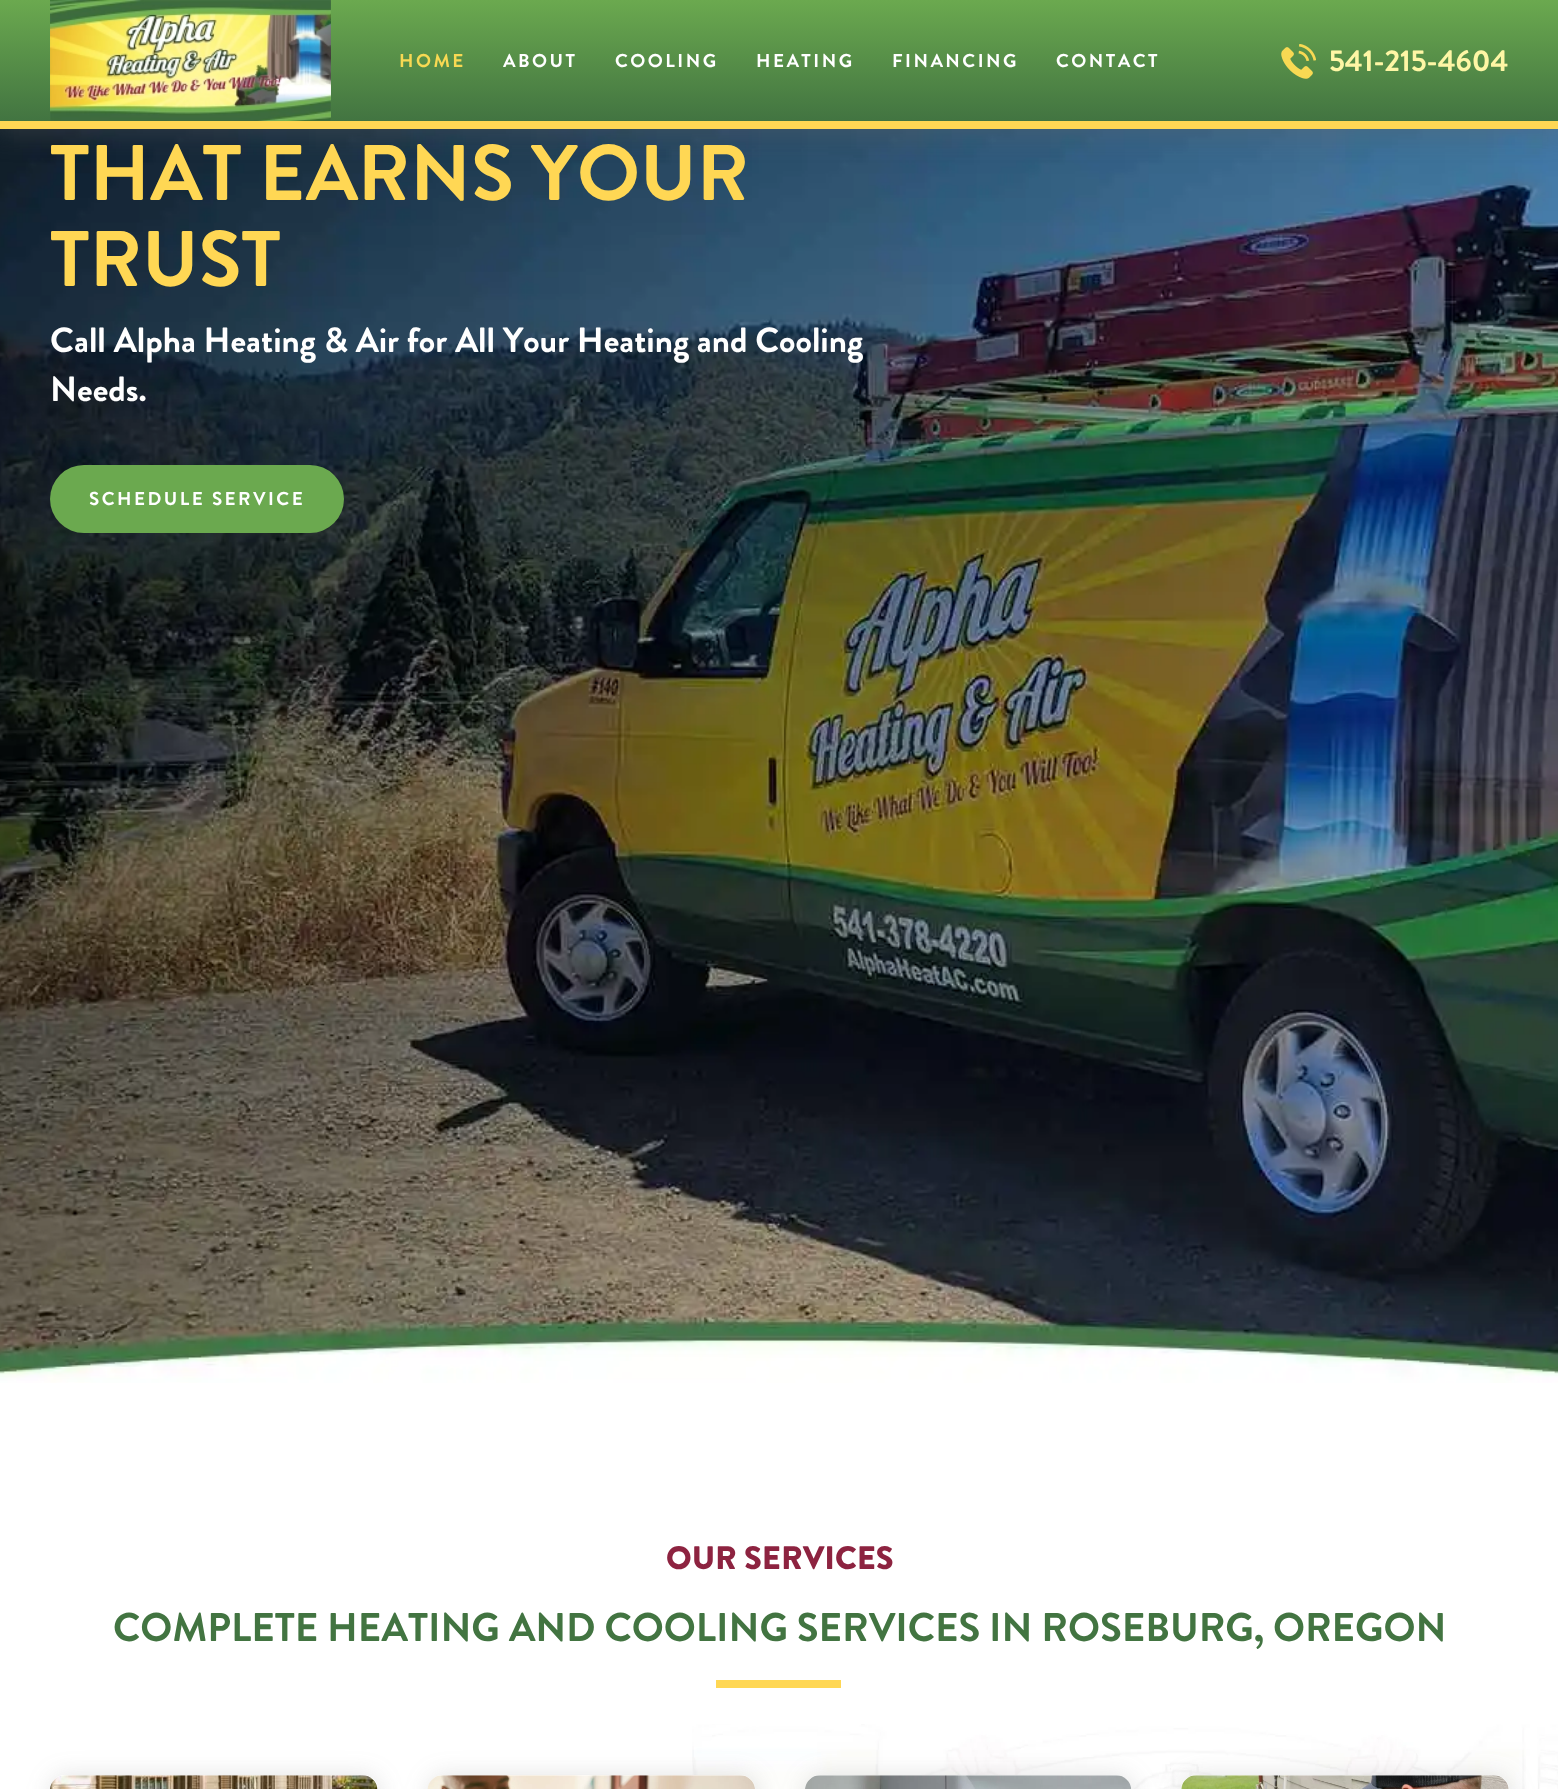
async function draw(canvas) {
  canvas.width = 1558
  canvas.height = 1789
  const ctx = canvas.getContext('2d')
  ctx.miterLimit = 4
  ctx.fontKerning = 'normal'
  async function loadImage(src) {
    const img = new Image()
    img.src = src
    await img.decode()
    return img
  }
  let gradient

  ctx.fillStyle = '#fff'
  ctx.fillRect(0, 0, 1558, 1789)
  ctx.drawImage(await loadImage('image2.png'), 0, 129, 1558, 1254)
  ctx.fillStyle = '#6767674d'
  ctx.filter = 'blur(12.5px)'
  ctx.beginPath()
  ctx.rect(-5, -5, 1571, 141)
  ctx.fill()
  ctx.filter = 'none'
  gradient = ctx.createLinearGradient(779, 0, 779, 121)
  gradient.addColorStop(0, '#6ba94f')
  gradient.addColorStop(1, '#427441')
  ctx.fillStyle = gradient
  ctx.fillRect(0, 0, 1558, 121)
  ctx.fillStyle = '#ffd754'
  ctx.fillRect(0, 121, 1558, 8)
  ctx.drawImage(await loadImage('image0.png'), 50, 0, 281, 121)
  ctx.letterSpacing = '2.5px'
  ctx.font = 'bold 18.75px "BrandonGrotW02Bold"'
  ctx.fillStyle = '#f8d953'
  ctx.fillText('HOME', 399, 67)
  ctx.fillStyle = '#fff'
  ctx.fillText('ABOUT', 503, 67)
  ctx.fillText('COOLING', 615, 67)
  ctx.fillText('HEATING', 756, 67)
  ctx.fillText('FINANCING', 892, 67)
  ctx.fillText('CONTACT', 1056, 67)
  ctx.drawImage(await loadImage('image1.png'), 1281, 44, 35, 35)
  ctx.letterSpacing = '0px'
  ctx.font = 'bold 30px "BrandonGrotW02Bold"'
  ctx.fillStyle = '#fef6a5'
  ctx.fillText('541-215-4604', 1329, 71)
  ctx.font = 'bold 78.75px "BrandonGrotW02Bold"'
  ctx.fillStyle = '#ffd754'
  ctx.fillText('THAT EARNS YOUR', 50, 200)
  ctx.fillText('TRUST', 50, 286)
  ctx.font = 'bold 35px "BrandonGrotW02Bold"'
  ctx.fillStyle = '#fff'
  ctx.fillText('Call Alpha Heating & Air for All Your Heating and Cooling', 50, 352)
  ctx.fillText('Needs.', 50, 401)
  ctx.fillStyle = '#6ba94f'
  ctx.beginPath()
  ctx.roundRect(50, 465, 294, 68, 34)
  ctx.fill()
  ctx.letterSpacing = '2.5px'
  ctx.font = 'bold 18.75px "BrandonGrotW02Bold"'
  ctx.fillStyle = '#fff'
  ctx.fillText('SCHEDULE SERVICE', 89, 505)
  ctx.drawImage(await loadImage('image3.png'), 692, 1724, 866, 65)
  ctx.letterSpacing = '0px'
  ctx.font = '900 32.5px "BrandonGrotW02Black"'
  ctx.fillStyle = '#8d2340'
  ctx.fillText('OUR SERVICES', 666, 1569)
  ctx.font = 'bold 40px "BrandonGrotW02Bold"'
  ctx.fillStyle = '#427441'
  ctx.fillText('COMPLETE HEATING AND COOLING SERVICES IN ROSEBURG, OREGON', 113, 1641)
  ctx.fillStyle = '#ffd754'
  ctx.fillRect(716, 1680, 125, 8)
  ctx.fillStyle = '#6a6a6a33'
  ctx.filter = 'blur(12.5px)'
  ctx.beginPath()
  ctx.roundRect(51, 1776, 328, 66, 15)
  ctx.fill()
  ctx.filter = 'none'
  ctx.fillStyle = '#fff'
  ctx.beginPath()
  ctx.roundRect(50, 1775, 328, 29, 15)
  ctx.fill()
  ctx.drawImage(await loadImage('image4.png'), 50, 1775, 328, 14)
  ctx.fillStyle = '#6a6a6a33'
  ctx.filter = 'blur(12.5px)'
  ctx.beginPath()
  ctx.roundRect(429, 1776, 327, 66, 15)
  ctx.fill()
  ctx.filter = 'none'
  ctx.fillStyle = '#fff'
  ctx.beginPath()
  ctx.roundRect(428, 1775, 327, 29, 15)
  ctx.fill()
  ctx.drawImage(await loadImage('image5.png'), 427, 1775, 328, 14)
  ctx.fillStyle = '#6a6a6a33'
  ctx.filter = 'blur(12.5px)'
  ctx.beginPath()
  ctx.roundRect(806, 1776, 327, 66, 15)
  ctx.fill()
  ctx.filter = 'none'
  ctx.fillStyle = '#fff'
  ctx.beginPath()
  ctx.roundRect(805, 1775, 326, 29, 15)
  ctx.fill()
  ctx.drawImage(await loadImage('image6.png'), 805, 1775, 326, 14)
  ctx.fillStyle = '#6a6a6a33'
  ctx.filter = 'blur(12.5px)'
  ctx.beginPath()
  ctx.roundRect(1183, 1776, 327, 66, 15)
  ctx.fill()
  ctx.filter = 'none'
  ctx.fillStyle = '#fff'
  ctx.beginPath()
  ctx.roundRect(1181, 1775, 328, 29, 15)
  ctx.fill()
  ctx.drawImage(await loadImage('image7.png'), 1181, 1775, 328, 14)
}

draw(document.querySelector('canvas'))
